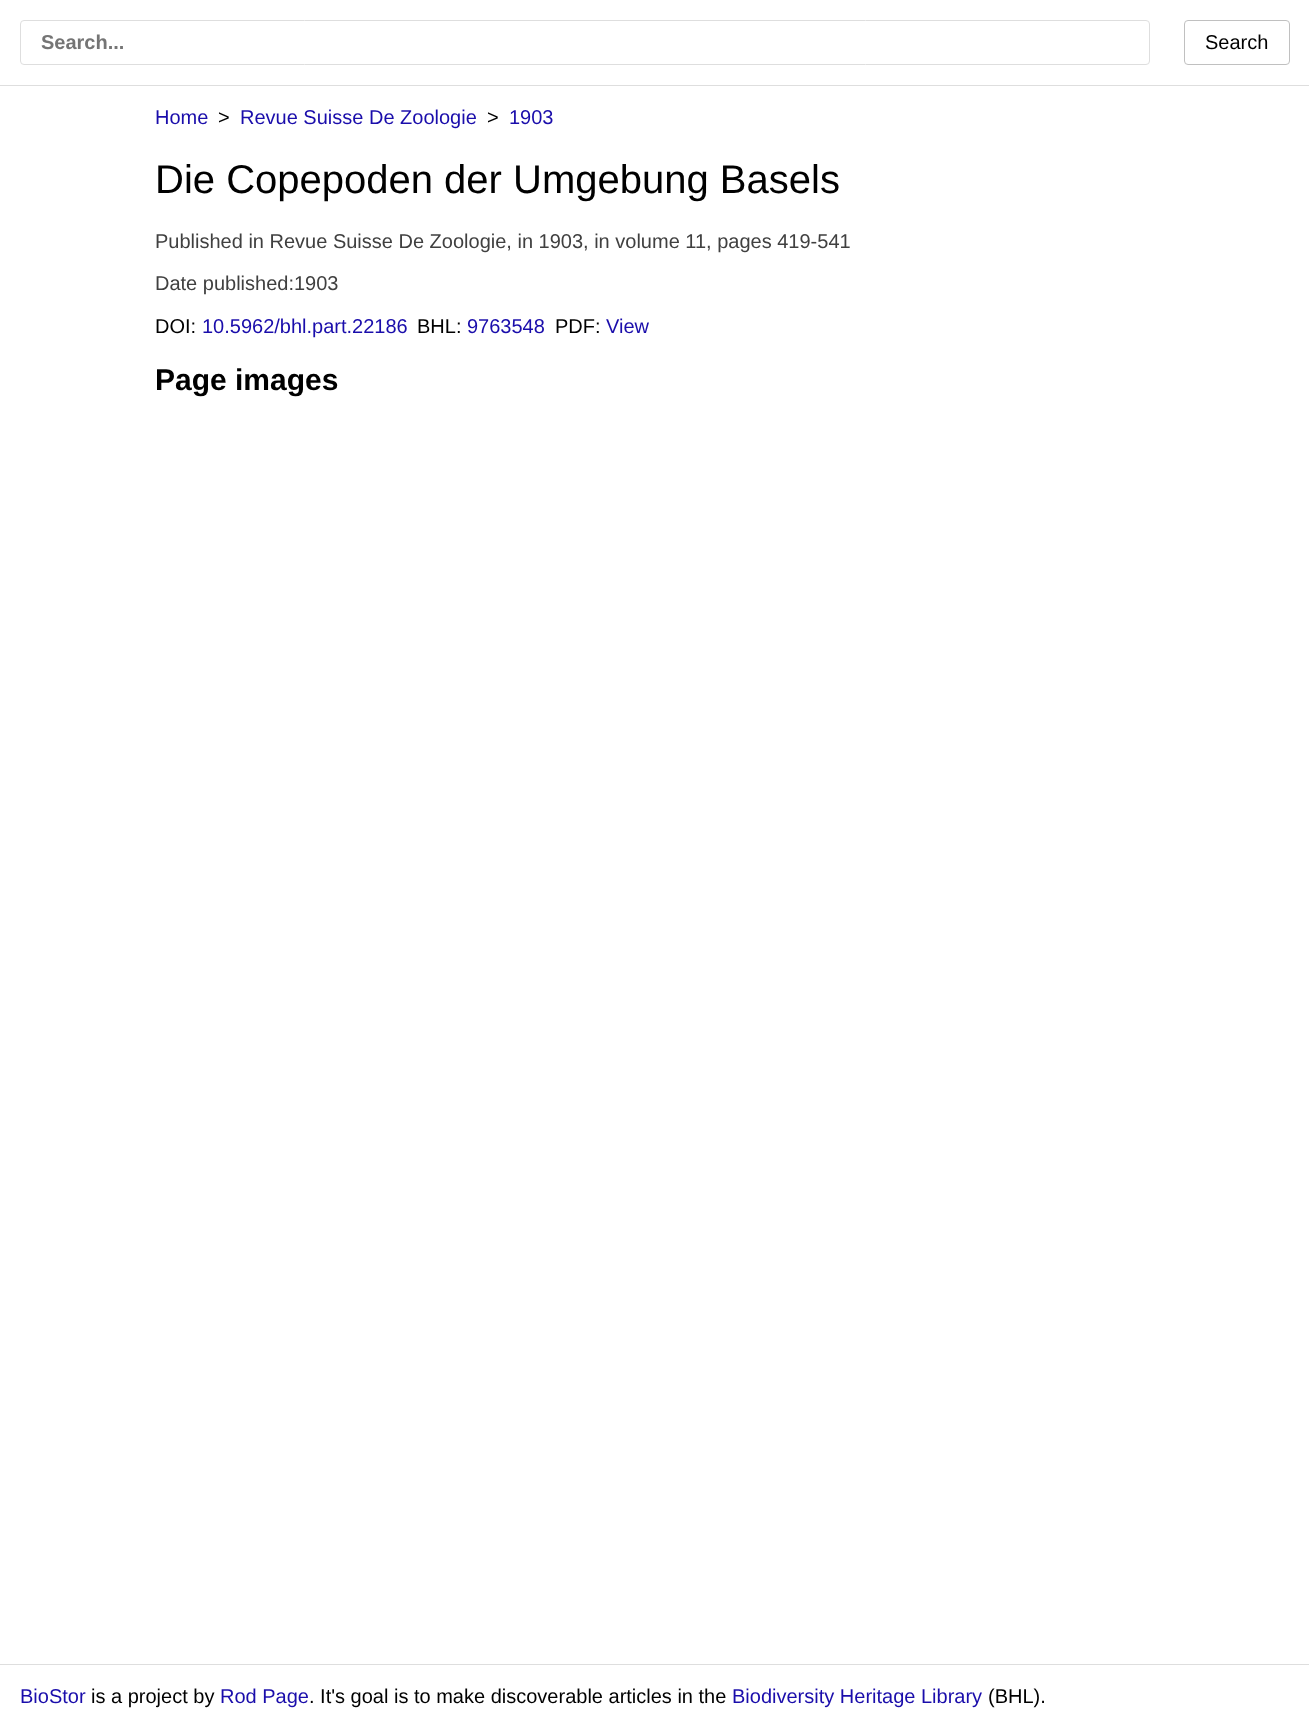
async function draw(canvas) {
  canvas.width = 1309
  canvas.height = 1727
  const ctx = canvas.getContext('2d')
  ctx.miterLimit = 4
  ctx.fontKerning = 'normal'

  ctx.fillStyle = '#fff'
  ctx.fillRect(0, 0, 1309, 1727)
  ctx.fillStyle = '#dedede'
  ctx.fillRect(0, 85, 1309, 1)
  ctx.beginPath()
  ctx.roundRect(20.5, 20.5, 1129, 44, 3.5)
  ctx.strokeStyle = '#dedede'
  ctx.stroke()
  ctx.font = 'bold 20px Liberation Sans'
  ctx.fillStyle = '#757575'
  ctx.fillText('Search...', 41, 49)
  ctx.beginPath()
  ctx.roundRect(1184.5, 20.5, 105, 44, 3.5)
  ctx.strokeStyle = '#c0c0c0'
  ctx.stroke()
  ctx.font = '20px Liberation Sans'
  ctx.fillStyle = '#000'
  ctx.fillText('Search', 1205, 49)
  ctx.fillStyle = '#1a0dab'
  ctx.fillText('Home', 155, 124)
  ctx.fillStyle = '#000'
  ctx.fillText('>', 218, 124)
  ctx.fillStyle = '#1a0dab'
  ctx.fillText('Revue Suisse De Zoologie', 240, 124)
  ctx.fillStyle = '#000'
  ctx.fillText('>', 487, 124)
  ctx.fillStyle = '#1a0dab'
  ctx.fillText('1903', 509, 124)
  ctx.font = '40px Liberation Sans'
  ctx.fillStyle = '#000'
  ctx.fillText('Die Copepoden der Umgebung Basels', 155, 193)
  ctx.font = '20px Liberation Sans'
  ctx.fillStyle = '#404040'
  ctx.fillText('Published in Revue Suisse De Zoologie, in 1903, in volume 11, pages 419-541', 155, 248)
  ctx.fillText('Date published:1903', 155, 290)
  ctx.fillStyle = '#000'
  ctx.fillText('DOI:', 155, 333)
  ctx.fillStyle = '#1a0dab'
  ctx.fillText('10.5962/bhl.part.22186', 202, 333)
  ctx.fillStyle = '#000'
  ctx.fillText('BHL:', 417, 333)
  ctx.fillStyle = '#1a0dab'
  ctx.fillText('9763548', 467, 333)
  ctx.fillStyle = '#000'
  ctx.fillText('PDF:', 555, 333)
  ctx.fillStyle = '#1a0dab'
  ctx.fillText('View', 606, 333)
  ctx.font = 'bold 30px Liberation Sans'
  ctx.fillStyle = '#000'
  ctx.fillText('Page images', 155, 390)
  ctx.fillStyle = '#dedede'
  ctx.fillRect(0, 1664, 1309, 1)
  ctx.font = '20px Liberation Sans'
  ctx.fillStyle = '#1a0dab'
  ctx.fillText('BioStor', 20, 1703)
  ctx.fillStyle = '#000'
  ctx.fillText('is a project by', 91, 1703)
  ctx.fillStyle = '#1a0dab'
  ctx.fillText('Rod Page', 220, 1703)
  ctx.fillStyle = '#000'
  ctx.fillText('. It\'s goal is to make discoverable articles in the', 309, 1703)
  ctx.fillStyle = '#1a0dab'
  ctx.fillText('Biodiversity Heritage Library', 732, 1703)
  ctx.fillStyle = '#000'
  ctx.fillText('(BHL).', 988, 1703)
}

draw(document.querySelector('canvas'))
